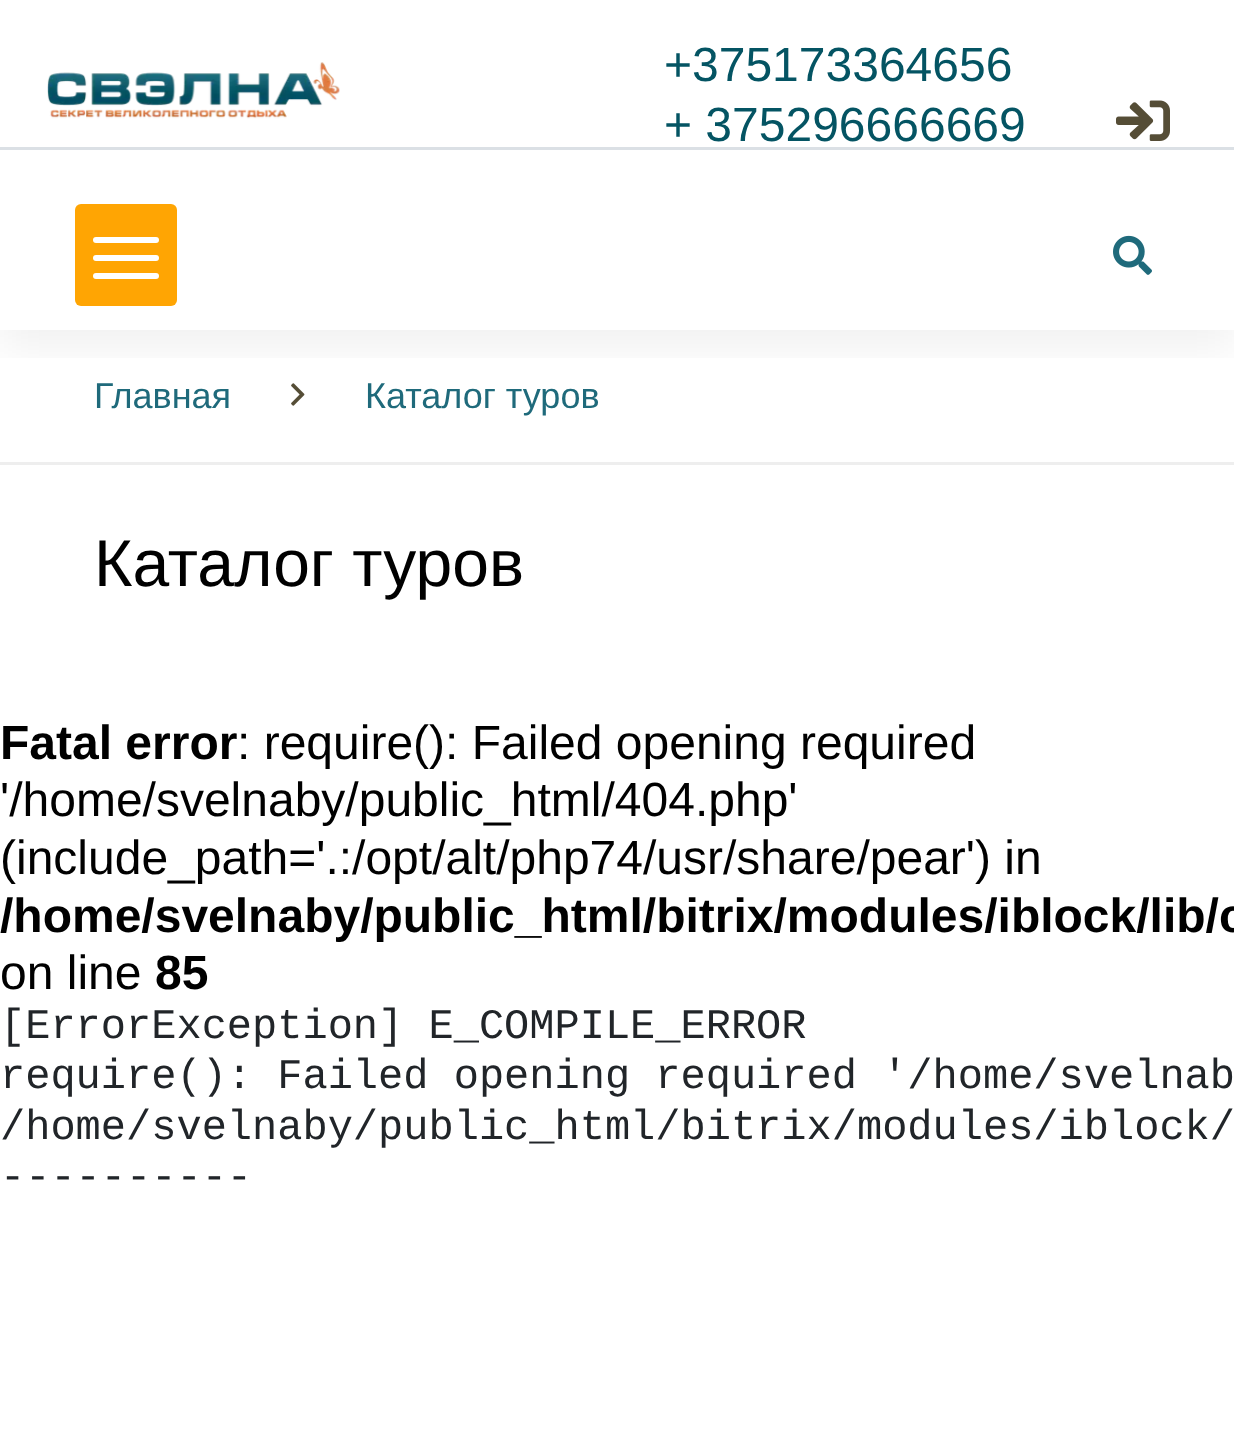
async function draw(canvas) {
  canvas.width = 1234
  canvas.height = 1429
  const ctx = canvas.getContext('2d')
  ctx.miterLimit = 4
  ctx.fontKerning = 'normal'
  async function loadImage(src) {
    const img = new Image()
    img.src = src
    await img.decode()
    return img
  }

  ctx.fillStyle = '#fff'
  ctx.fillRect(0, 0, 1234, 1429)
  ctx.drawImage(await loadImage('image3.png'), 291, 383, 14, 23)
  ctx.save()
  ctx.beginPath()
  ctx.rect(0, 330, 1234, 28)
  ctx.clip()
  ctx.fillStyle = '#0000000f'
  ctx.filter = 'blur(22.5px)'
  ctx.beginPath()
  ctx.rect(0, 18, 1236, 330)
  ctx.fill()
  ctx.filter = 'none'
  ctx.restore()
  ctx.fillStyle = '#dbe0e5'
  ctx.fillRect(0, 147, 1234, 3)
  ctx.drawImage(await loadImage('image0.png'), 47, 62, 293, 57)
  ctx.font = '48px Liberation Sans'
  ctx.fillStyle = '#045463'
  ctx.fillText('+375173364656', 664, 81)
  ctx.fillText('+ 375296666669', 664, 141)
  ctx.drawImage(await loadImage('image1.png'), 1116, 100, 54, 41)
  ctx.fillStyle = '#ffa503'
  ctx.beginPath()
  ctx.roundRect(75, 204, 102, 102, 6)
  ctx.fill()
  ctx.fillStyle = '#fff'
  ctx.beginPath()
  ctx.roundRect(93, 237, 66, 6, 3)
  ctx.fill()
  ctx.beginPath()
  ctx.roundRect(93, 255, 66, 6, 3)
  ctx.fill()
  ctx.beginPath()
  ctx.roundRect(93, 273, 66, 6, 3)
  ctx.fill()
  ctx.drawImage(await loadImage('image2.png'), 1113, 235, 39, 40)
  ctx.fillStyle = '#eee'
  ctx.fillRect(0, 462, 1234, 3)
  ctx.font = '36px Liberation Sans'
  ctx.fillStyle = '#1f6a7b'
  ctx.fillText('Главная', 94, 408)
  ctx.fillText('Каталог туров', 365, 408)
  ctx.font = '66px Liberation Sans'
  ctx.fillStyle = '#000'
  ctx.fillText('Каталог туров', 94, 586)
  ctx.font = 'bold 48px Liberation Sans'
  ctx.fillText('Fatal error', 0, 759)
  ctx.font = '48px Liberation Sans'
  ctx.fillText(': require(): Failed opening required', 237, 759)
  ctx.fillText('\'/home/svelnaby/public_html/404.php\'', 0, 816)
  ctx.fillText('(include_path=\'.:/opt/alt/php74/usr/share/pear\') in', 0, 874)
  ctx.font = 'bold 48px Liberation Sans'
  ctx.fillText('/home/svelnaby/public_html/bitrix/modules/iblock/lib/c', 0, 932)
  ctx.font = '48px Liberation Sans'
  ctx.fillText('on line', 0, 989)
  ctx.font = 'bold 48px Liberation Sans'
  ctx.fillText('85', 155, 989)
  ctx.font = '42px Liberation Mono'
  ctx.fillStyle = '#212529'
  ctx.fillText('[ErrorException] E_COMPILE_ERROR', 0, 1038)
  ctx.fillText('require(): Failed opening required \'/home/svelnab', 0, 1088)
  ctx.fillText('/home/svelnaby/public_html/bitrix/modules/iblock/', 0, 1139)
  ctx.fillText('----------', 0, 1189)
}

draw(document.querySelector('canvas'))
